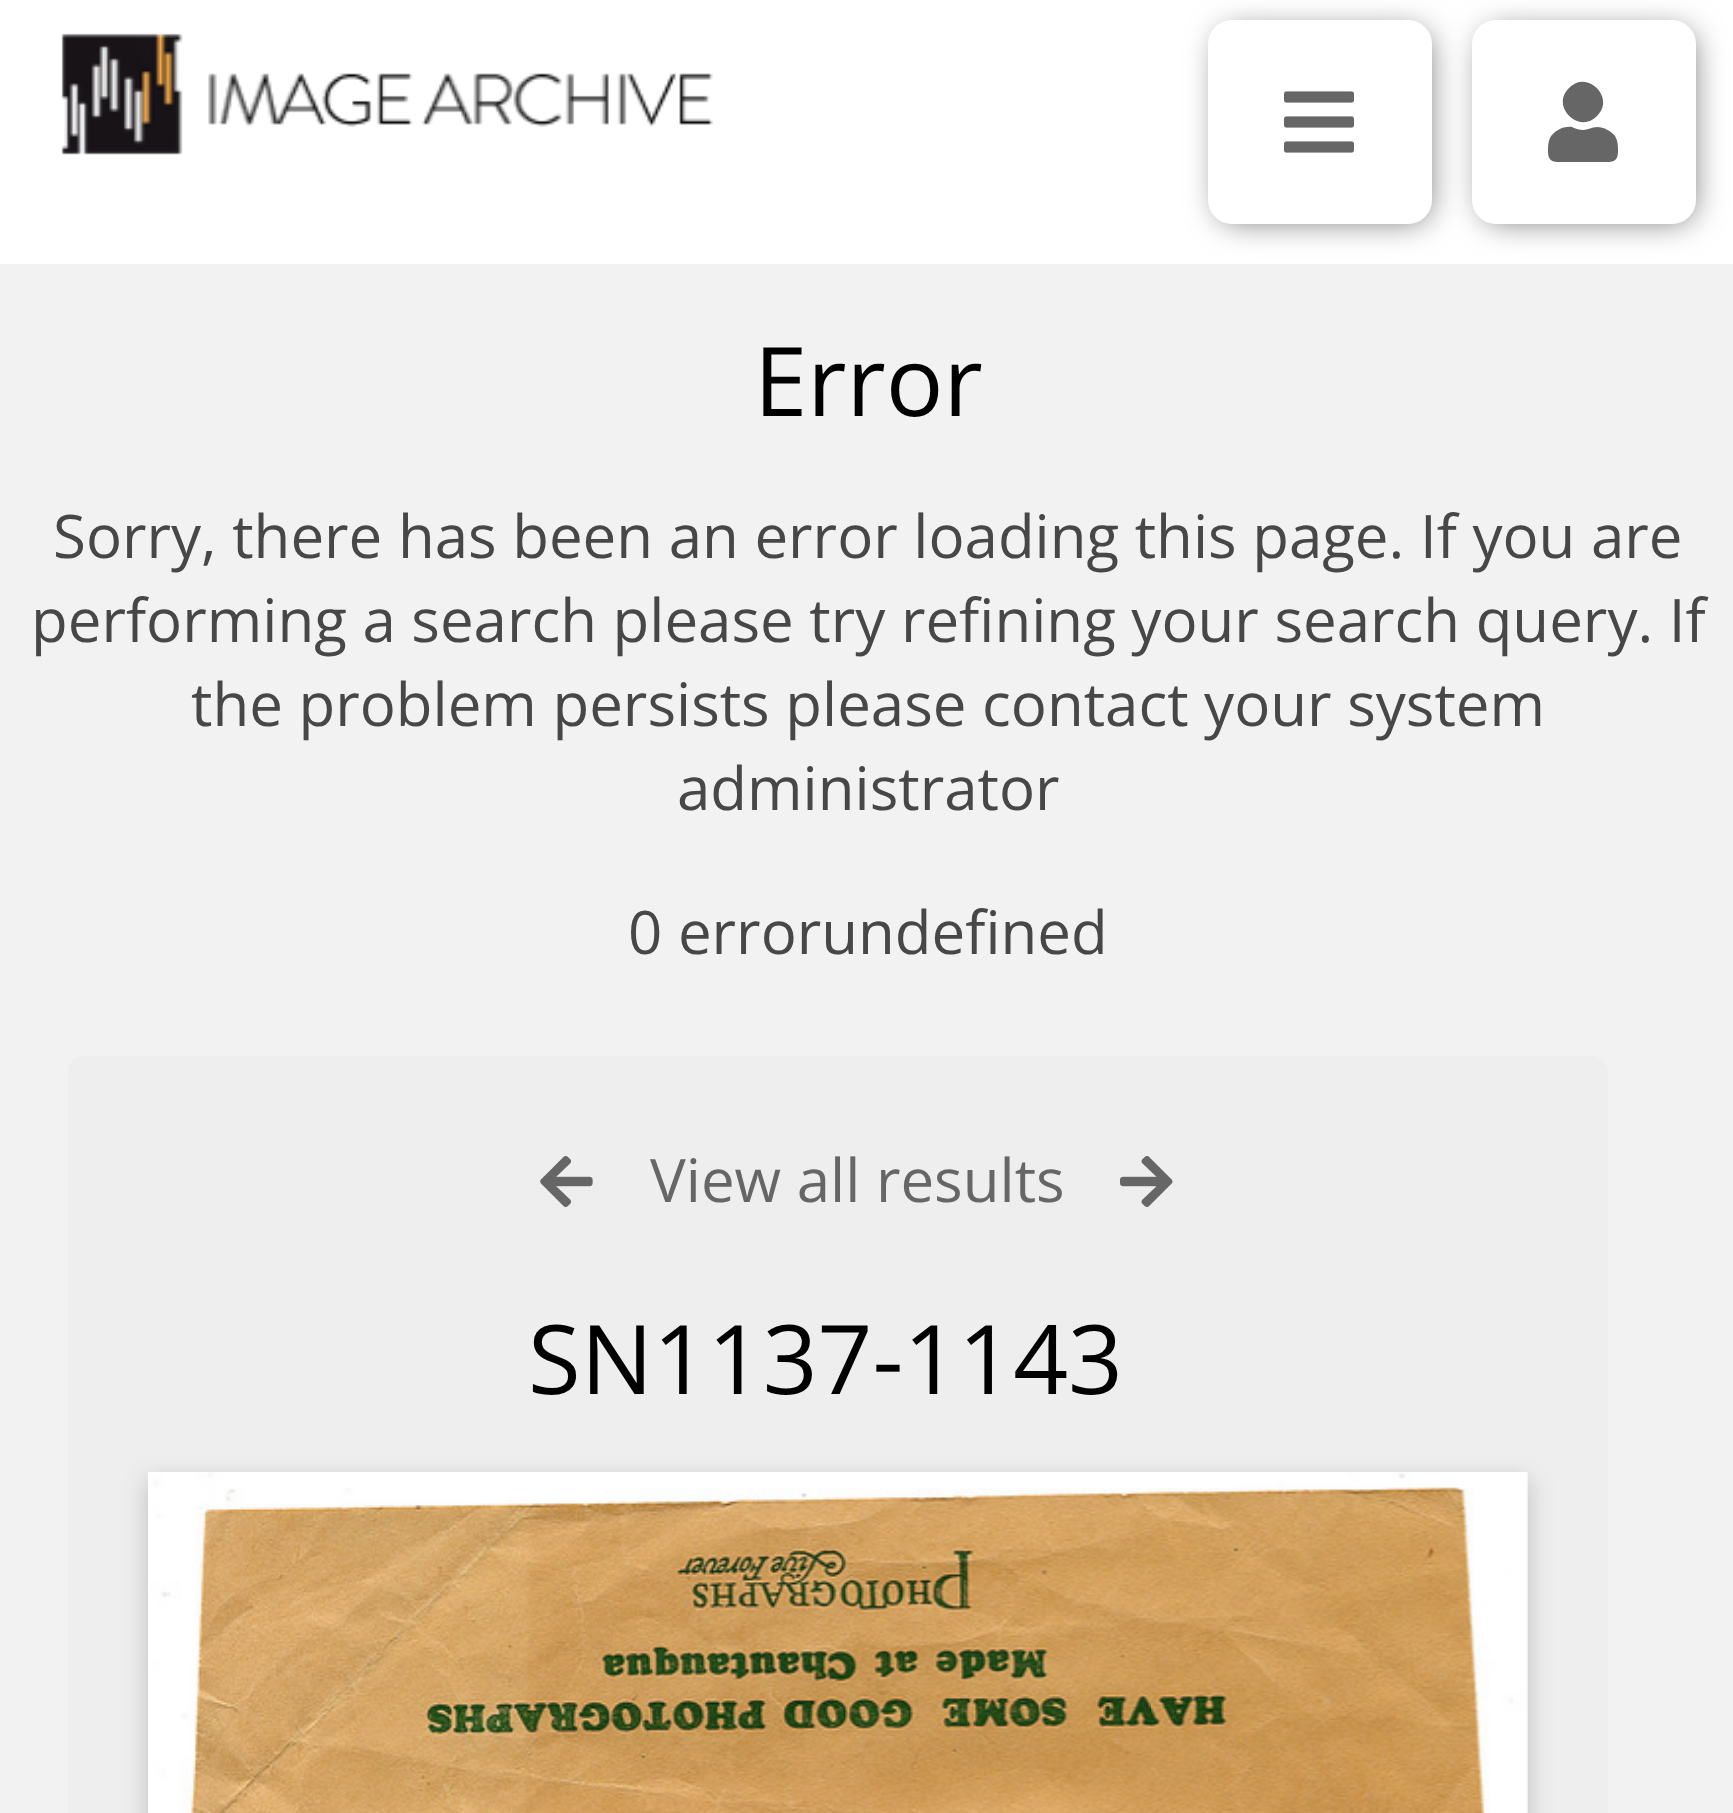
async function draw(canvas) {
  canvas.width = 1733
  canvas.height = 1813
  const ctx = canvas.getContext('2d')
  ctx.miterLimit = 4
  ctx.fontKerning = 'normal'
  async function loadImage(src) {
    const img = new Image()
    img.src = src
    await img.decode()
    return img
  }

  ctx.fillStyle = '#f2f2f2'
  ctx.fillRect(0, 0, 1733, 1813)
  ctx.fillStyle = '#fff'
  ctx.fillRect(0, 0, 1733, 264)
  ctx.drawImage(await loadImage('image0.png'), 61, 33, 652, 122)
  ctx.fillStyle = '#666'
  ctx.filter = 'blur(16px)'
  ctx.beginPath()
  ctx.roundRect(1484, 32, 208, 188, 16)
  ctx.fill()
  ctx.filter = 'none'
  ctx.fillStyle = '#fff'
  ctx.beginPath()
  ctx.roundRect(1472, 20, 224, 204, 24)
  ctx.fill()
  ctx.fillStyle = '#666'
  ctx.filter = 'blur(16px)'
  ctx.beginPath()
  ctx.roundRect(1220, 32, 208, 188, 16)
  ctx.fill()
  ctx.filter = 'none'
  ctx.fillStyle = '#fff'
  ctx.beginPath()
  ctx.roundRect(1208, 20, 224, 204, 24)
  ctx.fill()
  ctx.drawImage(await loadImage('image1.png'), 1284, 91, 70, 62)
  ctx.fillStyle = '#666'
  ctx.beginPath()
  ctx.moveTo(1597, 116)
  ctx.bezierCurveTo(1579, 135, 1550, 106, 1569, 88)
  ctx.bezierCurveTo(1587, 69, 1616, 98, 1597, 116)
  ctx.closePath()
  ctx.moveTo(1597, 127)
  ctx.bezierCurveTo(1604, 127, 1611, 131, 1615, 136)
  ctx.bezierCurveTo(1618, 141, 1618, 146, 1618, 151)
  ctx.bezierCurveTo(1618, 163, 1612, 162, 1601, 162)
  ctx.lineTo(1565, 162)
  ctx.bezierCurveTo(1554, 162, 1548, 163, 1548, 151)
  ctx.bezierCurveTo(1548, 147, 1548, 142, 1550, 138)
  ctx.bezierCurveTo(1554, 131, 1563, 126, 1572, 127)
  ctx.lineTo(1574, 128)
  ctx.bezierCurveTo(1577, 129, 1580, 130, 1583, 130)
  ctx.bezierCurveTo(1588, 130, 1592, 127, 1597, 127)
  ctx.closePath()
  ctx.fill()
  ctx.font = '96px Open Sans'
  ctx.fillStyle = '#000'
  ctx.fillText('Error', 754, 416)
  ctx.font = '60px Open Sans'
  ctx.fillStyle = '#474747'
  ctx.fillText('Sorry, there has been an error loading this page. If you are', 53, 558)
  ctx.fillText('performing a search please try refining your search query. If', 31, 642)
  ctx.fillText('the problem persists please contact your system', 191, 726)
  ctx.fillText('administrator', 677, 810)
  ctx.fillText('0 errorundefined', 628, 954)
  ctx.fillStyle = '#eee'
  ctx.beginPath()
  ctx.roundRect(68, 1056, 1540, 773, 16)
  ctx.fill()
  ctx.drawImage(await loadImage('image2.png'), 540, 1156, 53, 51)
  ctx.fillStyle = '#666'
  ctx.fillText('View all results', 650, 1202)
  ctx.drawImage(await loadImage('image3.png'), 1120, 1156, 53, 51)
  ctx.font = '96px Open Sans'
  ctx.fillStyle = '#000'
  ctx.fillText('SN1137-1143', 528, 1394)
  ctx.fillStyle = '#00000033'
  ctx.filter = 'blur(12px)'
  ctx.beginPath()
  ctx.rect(148, 1480, 1380, 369)
  ctx.fill()
  ctx.filter = 'none'
  ctx.drawImage(await loadImage('image4.png'), 148, 1472, 1380, 341)
}

draw(document.querySelector('canvas'))
